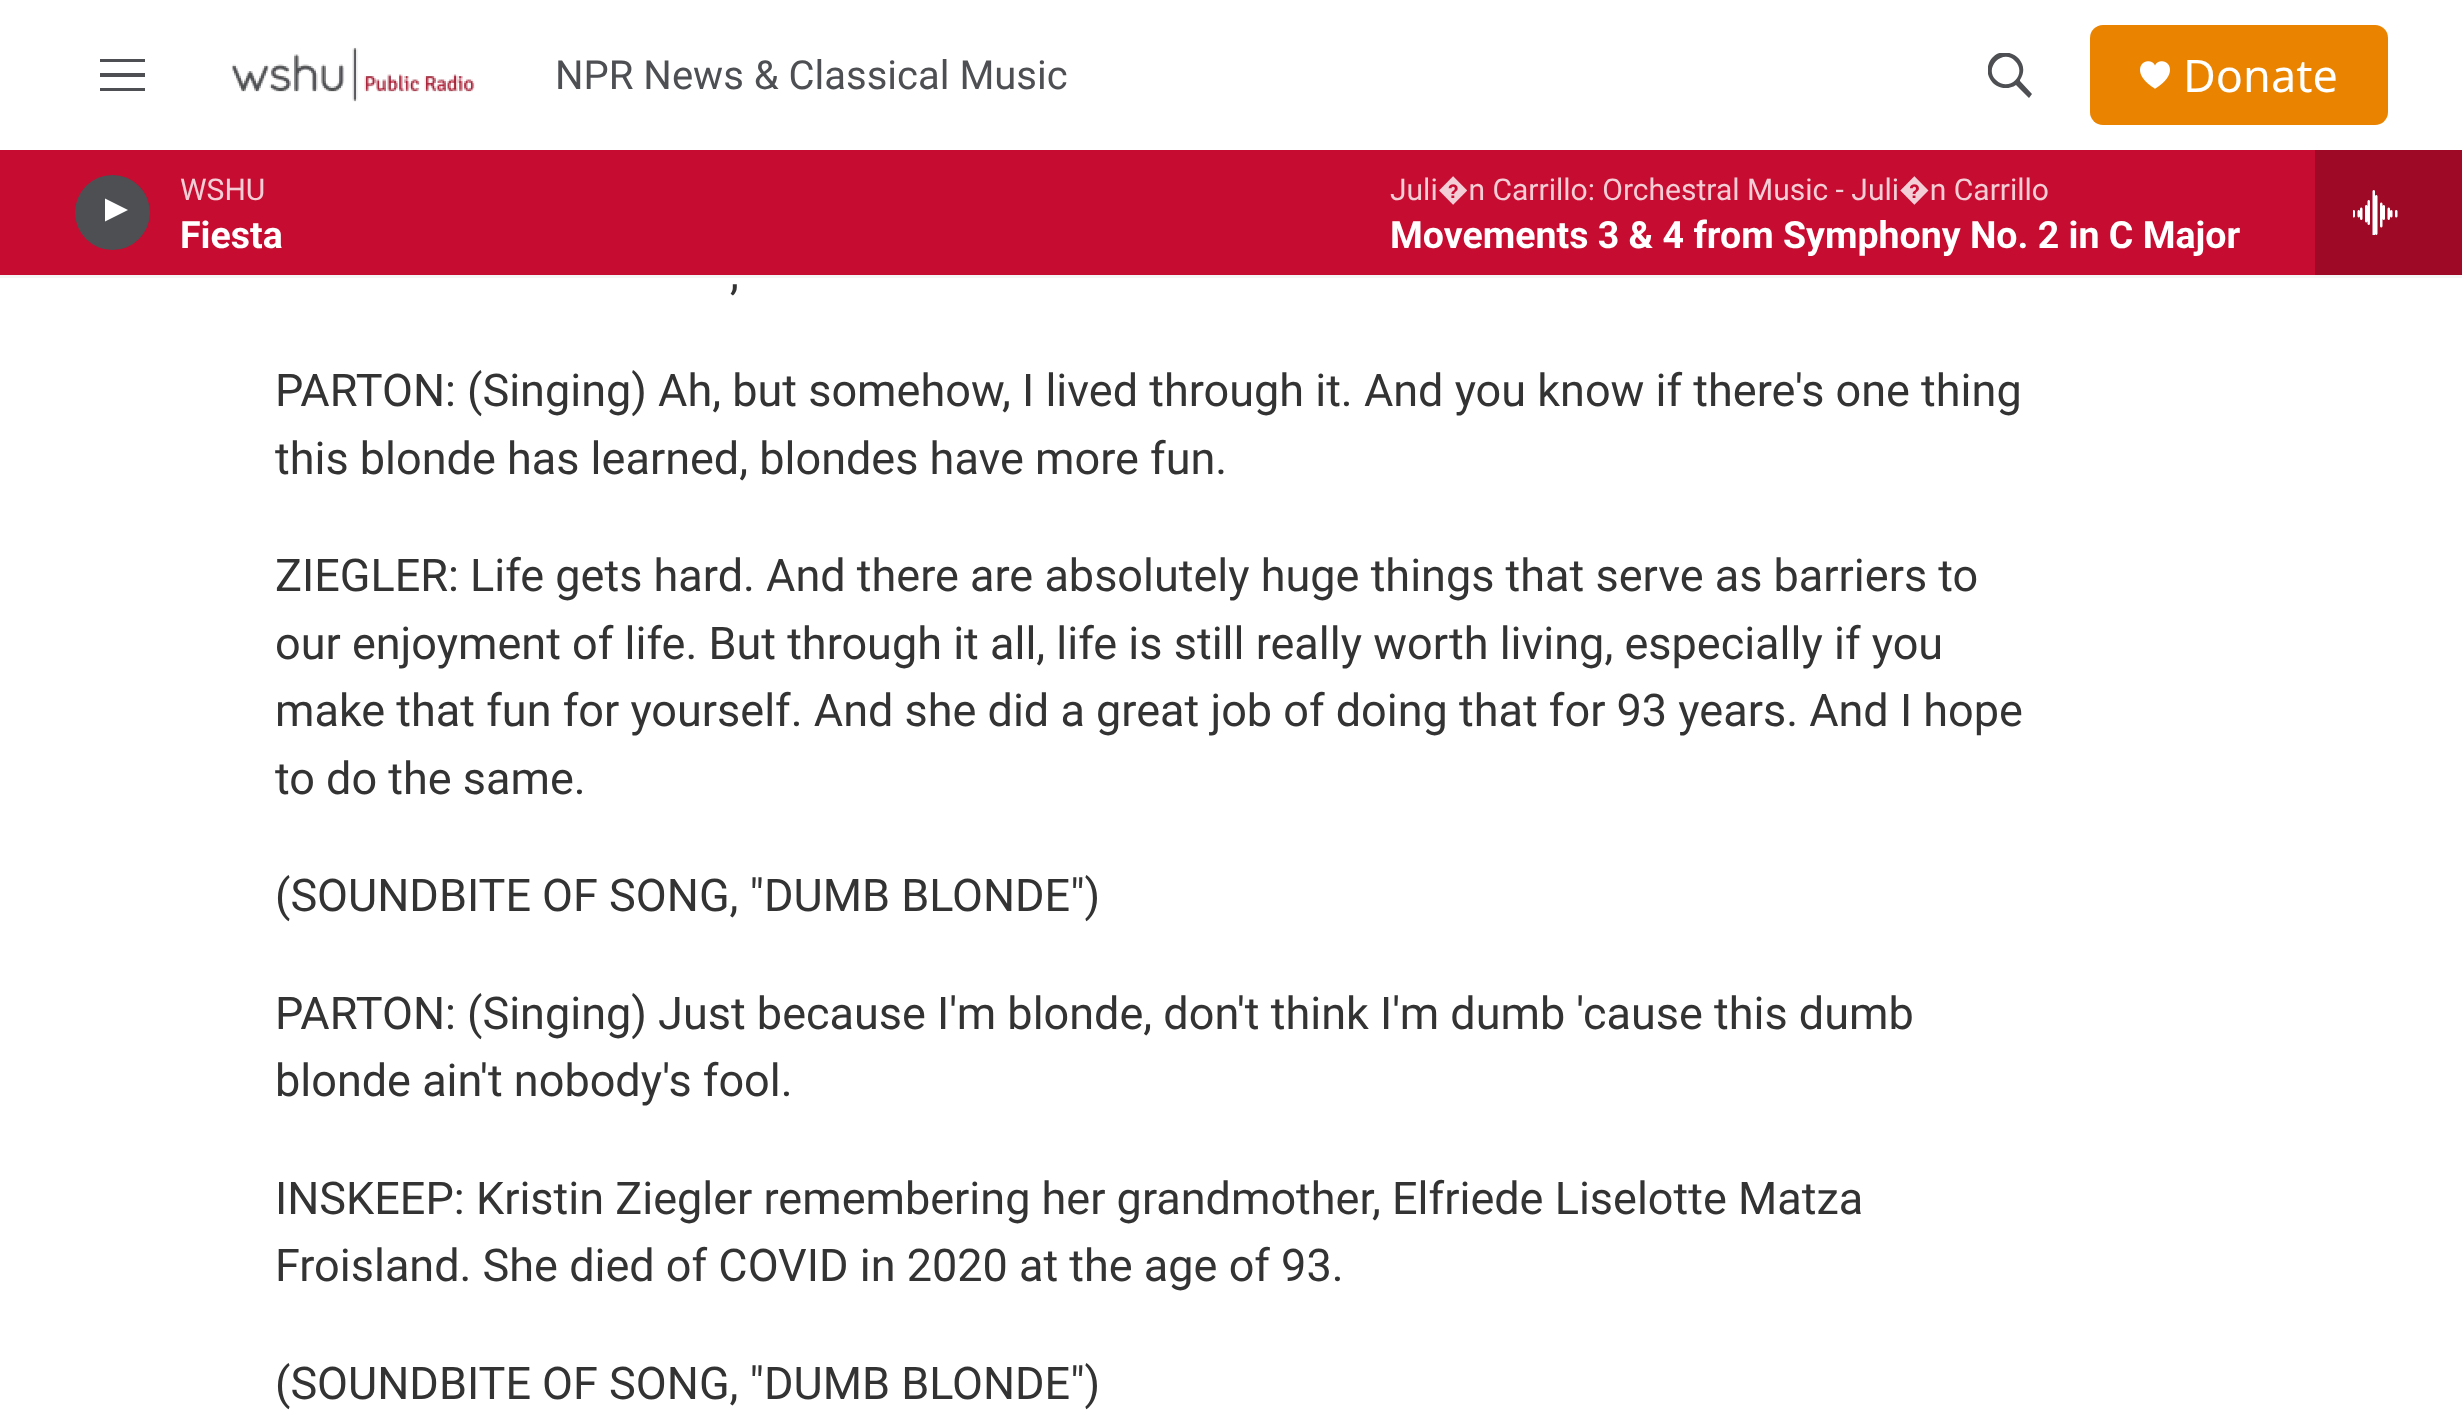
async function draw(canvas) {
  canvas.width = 2462
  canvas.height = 1423
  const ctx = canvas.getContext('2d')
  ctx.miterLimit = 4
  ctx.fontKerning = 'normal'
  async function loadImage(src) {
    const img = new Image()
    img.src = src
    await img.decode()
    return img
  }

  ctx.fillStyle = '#fff'
  ctx.fillRect(0, 0, 2462, 1423)
  ctx.fillStyle = '#f5f5f5'
  ctx.fillRect(0, 275, 2462, 3)
  ctx.fillStyle = '#4d4f53'
  ctx.beginPath()
  ctx.moveTo(100, 77)
  ctx.lineTo(100, 73)
  ctx.lineTo(145, 73)
  ctx.lineTo(145, 77)
  ctx.closePath()
  ctx.moveTo(100, 62)
  ctx.lineTo(100, 59)
  ctx.lineTo(145, 59)
  ctx.lineTo(145, 62)
  ctx.closePath()
  ctx.moveTo(100, 91)
  ctx.lineTo(100, 88)
  ctx.lineTo(145, 88)
  ctx.lineTo(145, 91)
  ctx.closePath()
  ctx.fill('evenodd')
  ctx.drawImage(await loadImage('image0.png'), 231, 47, 244, 55)
  ctx.font = '40px Roboto'
  ctx.fillText('NPR News & Classical Music', 555, 89)
  ctx.save()
  ctx.beginPath()
  ctx.rect(1988, 53, 45, 45)
  ctx.clip()
  ctx.beginPath()
  ctx.moveTo(2020, 80)
  ctx.lineTo(2020, 81)
  ctx.lineTo(2032, 94)
  ctx.lineTo(2029, 98)
  ctx.lineTo(2016, 85)
  ctx.bezierCurveTo(2007, 91, 1995, 88, 1990, 79)
  ctx.bezierCurveTo(1987, 74, 1987, 68, 1989, 63)
  ctx.bezierCurveTo(1999, 40, 2034, 58, 2020, 80)
  ctx.closePath()
  ctx.moveTo(2015, 61)
  ctx.bezierCurveTo(2003, 48, 1983, 68, 1996, 80)
  ctx.bezierCurveTo(2009, 93, 2028, 74, 2015, 61)
  ctx.closePath()
  ctx.fill('evenodd')
  ctx.restore()
  ctx.fillStyle = '#e98300'
  ctx.beginPath()
  ctx.roundRect(2090, 25, 298, 100, 13)
  ctx.fill()
  ctx.drawImage(await loadImage('image1.png'), 2140, 61, 30, 28)
  ctx.font = '45px Noto Sans'
  ctx.fillStyle = '#fff'
  ctx.fillText('Donate', 2183, 92)
  ctx.fillStyle = '#c60c30'
  ctx.fillRect(0, 150, 2315, 125)
  ctx.fillStyle = '#4d4f53'
  ctx.beginPath()
  ctx.arc(112.5, 212.5, 37.5, 0, 2 * Math.PI)
  ctx.fill()
  ctx.save()
  ctx.beginPath()
  ctx.rect(105, 195, 29, 38)
  ctx.clip()
  ctx.fillStyle = '#fff'
  ctx.beginPath()
  ctx.moveTo(104, 198)
  ctx.lineTo(128, 210)
  ctx.lineTo(104, 222)
  ctx.closePath()
  ctx.fill()
  ctx.restore()
  ctx.font = '30px Roboto'
  ctx.fillStyle = '#f4ced6'
  ctx.fillText('WSHU', 180, 200)
  ctx.font = 'bold 37.5px Roboto'
  ctx.fillStyle = '#fff'
  ctx.fillText('Fiesta', 180, 248)
  ctx.font = '30px Roboto'
  ctx.fillStyle = '#f4ced6'
  ctx.fillText('Juli�n Carrillo: Orchestral Music - Juli�n Carrillo', 1390, 200)
  ctx.font = 'bold 37.5px Roboto'
  ctx.fillStyle = '#fff'
  ctx.fillText('Movements 3 & 4 from Symphony No. 2 in C Major', 1390, 248)
  ctx.fillStyle = '#9e0a26'
  ctx.fillRect(2315, 150, 147, 125)
  ctx.drawImage(await loadImage('image2.png'), 2353, 190, 45, 45)
  ctx.font = '45px Roboto'
  ctx.fillStyle = '#333'
  ctx.fillText(',', 730, 289)
  ctx.fillText('PARTON: (Singing) Ah, but somehow, I lived through it. And you know if there\'s one thing', 275, 406)
  ctx.fillText('this blonde has learned, blondes have more fun.', 275, 474)
  ctx.fillText('ZIEGLER: Life gets hard. And there are absolutely huge things that serve as barriers to', 275, 591)
  ctx.fillText('our enjoyment of life. But through it all, life is still really worth living, especially if you', 275, 659)
  ctx.fillText('make that fun for yourself. And she did a great job of doing that for 93 years. And I hope', 275, 726)
  ctx.fillText('to do the same.', 275, 794)
  ctx.fillText('(SOUNDBITE OF SONG, "DUMB BLONDE")', 275, 911)
  ctx.fillText('PARTON: (Singing) Just because I\'m blonde, don\'t think I\'m dumb \'cause this dumb', 275, 1029)
  ctx.fillText('blonde ain\'t nobody\'s fool.', 275, 1096)
  ctx.fillText('INSKEEP: Kristin Ziegler remembering her grandmother, Elfriede Liselotte Matza', 275, 1214)
  ctx.fillText('Froisland. She died of COVID in 2020 at the age of 93.', 275, 1281)
  ctx.fillText('(SOUNDBITE OF SONG, "DUMB BLONDE")', 275, 1399)
}

draw(document.querySelector('canvas'))
